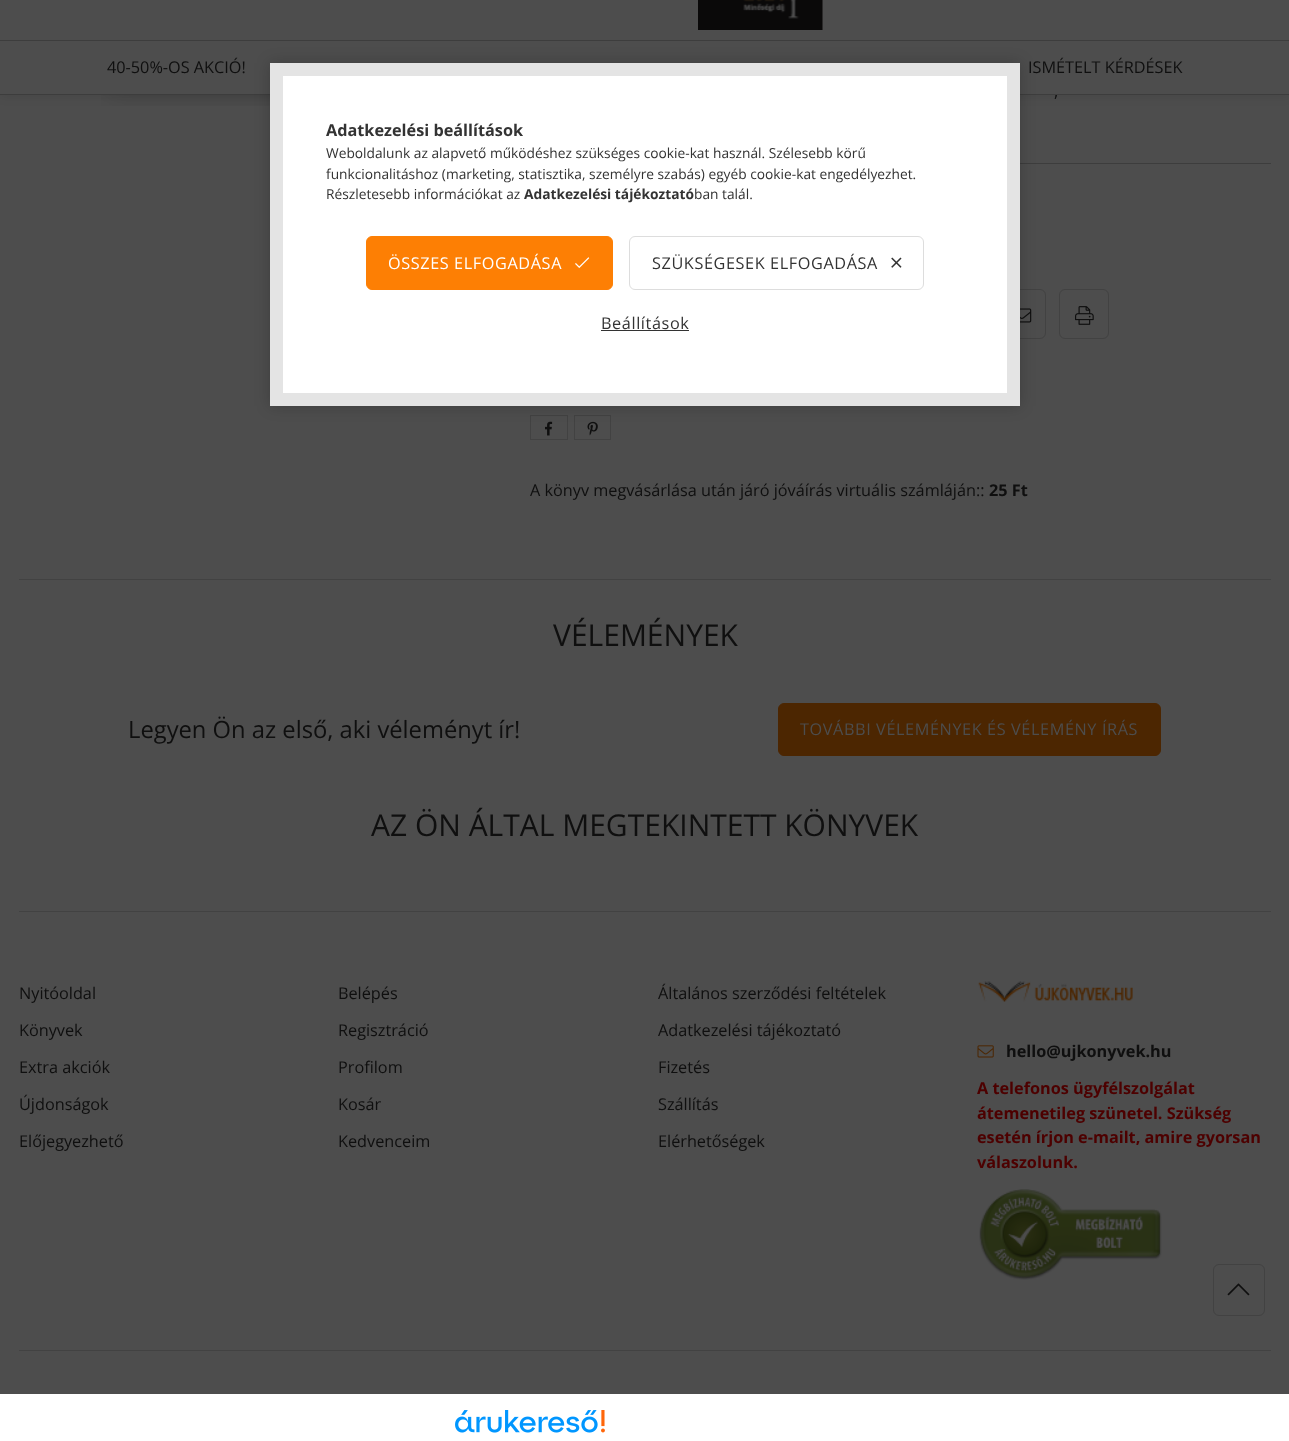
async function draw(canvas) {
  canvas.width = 1289
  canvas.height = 1441
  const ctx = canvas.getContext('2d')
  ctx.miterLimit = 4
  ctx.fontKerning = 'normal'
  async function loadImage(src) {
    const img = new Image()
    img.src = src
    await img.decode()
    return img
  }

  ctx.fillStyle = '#fff'
  ctx.fillRect(0, 0, 1289, 1441)
  ctx.fillStyle = '#4d4d4d'
  ctx.fillRect(0, 95, 1289, 1299)
  ctx.drawImage(await loadImage('image1.png'), 101, 95, 169, 11)
  ctx.fillStyle = '#0000001a'
  ctx.filter = 'blur(6px)'
  ctx.beginPath()
  ctx.rect(0, -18, 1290, 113)
  ctx.fill()
  ctx.filter = 'none'
  ctx.fillStyle = '#4d4d4d'
  ctx.fillRect(0, 0, 1289, 94)
  ctx.drawImage(await loadImage('image0.png'), 698, 0, 125, 30)
  ctx.fillStyle = '#3d3d3d'
  ctx.fillRect(0, 40, 1289, 1)
  ctx.fillRect(0, 94, 1289, 1)
  ctx.font = '16.25px Open Sans'
  ctx.fillStyle = '#0f0f0f'
  ctx.fillText('40-50%-OS AKCIÓ!', 107, 73)
  ctx.fillText('ISMÉTELT KÉRDÉSEK', 1028, 73)
  ctx.fillStyle = '#424242'
  ctx.fillRect(19, 579, 1252, 1)
  ctx.wordSpacing = '3px'
  ctx.fillStyle = '#0f0f0f'
  ctx.fillText(',', 1054, 97)
  ctx.fillStyle = '#3d3d3d'
  ctx.fillRect(1020, 163, 251, 1)
  ctx.beginPath()
  ctx.roundRect(996.5, 289.5, 49, 49, 5.5)
  ctx.strokeStyle = '#424242'
  ctx.stroke()
  ctx.drawImage(await loadImage('image2.png'), 1020, 308, 12, 15)
  ctx.beginPath()
  ctx.roundRect(1059.5, 289.5, 49, 49, 5.5)
  ctx.stroke()
  ctx.drawImage(await loadImage('image3.png'), 1075, 306, 19, 19)
  ctx.strokeRect(530.5, 415.5, 37, 24)
  ctx.drawImage(await loadImage('image4.png'), 545, 421, 8, 15)
  ctx.strokeRect(574.5, 415.5, 36, 24)
  ctx.drawImage(await loadImage('image5.png'), 587, 421, 11, 15)
  ctx.wordSpacing = '0px'
  ctx.fillStyle = '#0f0f0f'
  ctx.fillText('A könyv megvásárlása után járó jóváírás virtuális számláján::', 530, 496)
  ctx.font = 'bold 16.25px Open Sans'
  ctx.fillText('25 Ft', 989, 496)
  ctx.font = '30px Open Sans'
  ctx.fillText('VÉLEMÉNYEK', 553, 646)
  ctx.font = '23.75px Open Sans'
  ctx.fillText('Legyen Ön az első, aki véleményt ír!', 128, 738)
  ctx.fillStyle = '#4c2601'
  ctx.beginPath()
  ctx.roundRect(778.5, 703.5, 382, 52, 5.5)
  ctx.fill()
  ctx.strokeStyle = '#4c2601'
  ctx.stroke()
  ctx.letterSpacing = '0.6px'
  ctx.font = '16.25px Open Sans'
  ctx.fillStyle = '#4d4d4d'
  ctx.fillText('TOVÁBBI VÉLEMÉNYEK ÉS VÉLEMÉNY ÍRÁS', 800, 735)
  ctx.letterSpacing = '0px'
  ctx.font = '30px Open Sans'
  ctx.fillStyle = '#0f0f0f'
  ctx.fillText('AZ ÖN ÁLTAL MEGTEKINTETT KÖNYVEK', 371, 836)
  ctx.fillStyle = '#424242'
  ctx.fillRect(19, 911, 1252, 1)
  ctx.font = '16.25px Open Sans'
  ctx.fillStyle = '#0f0f0f'
  ctx.fillText('Nyitóoldal', 19, 999)
  ctx.fillText('Könyvek', 19, 1036)
  ctx.fillText('Extra akciók', 19, 1073)
  ctx.fillText('Újdonságok', 19, 1110)
  ctx.fillText('Előjegyezhető', 19, 1147)
  ctx.fillText('Belépés', 338, 999)
  ctx.fillText('Regisztráció', 338, 1036)
  ctx.fillText('Profilom', 338, 1073)
  ctx.fillText('Kosár', 338, 1110)
  ctx.fillText('Kedvenceim', 338, 1147)
  ctx.fillText('Általános szerződési feltételek', 658, 999)
  ctx.fillText('Adatkezelési tájékoztató', 658, 1036)
  ctx.fillText('Fizetés', 658, 1073)
  ctx.fillText('Szállítás', 658, 1110)
  ctx.fillText('Elérhetőségek', 658, 1147)
  ctx.drawImage(await loadImage('image6.png'), 978, 981, 155, 21)
  ctx.drawImage(await loadImage('image7.png'), 977, 1045, 17, 13)
  ctx.font = 'bold 16.25px Open Sans'
  ctx.fillText('hello@ujkonyvek.hu', 1006, 1057)
  ctx.fillStyle = '#4d0000'
  ctx.fillText('A telefonos ügyfélszolgálat', 977, 1094)
  ctx.fillText('átemenetileg szünetel. Szükség', 977, 1119)
  ctx.fillText('esetén írjon e-mailt, amire gyorsan', 977, 1143)
  ctx.fillText('válaszolunk.', 977, 1168)
  ctx.drawImage(await loadImage('image8.png'), 979, 1189, 183, 91)
  ctx.fillStyle = '#424242'
  ctx.fillRect(19, 1350, 1252, 1)
  ctx.drawImage(await loadImage('image9.png'), 455, 1410, 150, 23)
  ctx.fillStyle = '#00000033'
  ctx.filter = 'blur(7.5px)'
  ctx.beginPath()
  ctx.rect(270, 63, 750, 343)
  ctx.fill()
  ctx.filter = 'none'
  ctx.fillStyle = '#fff'
  ctx.beginPath()
  ctx.rect(276.5, 69.5, 737, 330)
  ctx.fill()
  ctx.strokeStyle = '#e4e4e4'
  ctx.lineWidth = 13
  ctx.stroke()
  ctx.fillStyle = '#333'
  ctx.fillText('Adatkezelési beállítások', 326, 136)
  ctx.font = '13.75px Open Sans'
  ctx.fillText('Weboldalunk az alapvető működéshez szükséges cookie-kat használ. Szélesebb körű', 326, 158)
  ctx.fillText('funkcionalitáshoz (marketing, statisztika, személyre szabás) egyéb cookie-kat engedélyezhet.', 326, 179)
  ctx.fillText('Részletesebb információkat az', 326, 199)
  ctx.font = 'bold 13.75px Open Sans'
  ctx.fillText('Adatkezelési tájékoztató', 524, 199)
  ctx.font = '13.75px Open Sans'
  ctx.fillText('ban talál.', 694, 199)
  ctx.fillStyle = '#fd7f04'
  ctx.beginPath()
  ctx.roundRect(366.5, 236.5, 246, 53, 5.5)
  ctx.fill()
  ctx.strokeStyle = '#fd7f04'
  ctx.lineWidth = 1
  ctx.stroke()
  ctx.letterSpacing = '0.6px'
  ctx.font = '16.25px Open Sans'
  ctx.fillStyle = '#fff'
  ctx.fillText('ÖSSZES ELFOGADÁSA', 388, 269)
  ctx.drawImage(await loadImage('image10.png'), 575, 257, 15, 11)
  ctx.beginPath()
  ctx.roundRect(629.5, 236.5, 294, 53, 5.5)
  ctx.strokeStyle = '#ddd'
  ctx.stroke()
  ctx.fillStyle = '#333'
  ctx.fillText('SZÜKSÉGESEK ELFOGADÁSA', 652, 269)
  ctx.drawImage(await loadImage('image11.png'), 891, 257, 11, 11)
  ctx.fillText('Beállítások', 601, 329)
  ctx.fillRect(601, 330, 88, 1)
  ctx.beginPath()
  ctx.roundRect(1213.5, 1264.5, 51, 51, 5.5)
  ctx.strokeStyle = '#424242'
  ctx.stroke()
  ctx.drawImage(await loadImage('image12.png'), 1227, 1283, 23, 13)
}

draw(document.querySelector('canvas'))
